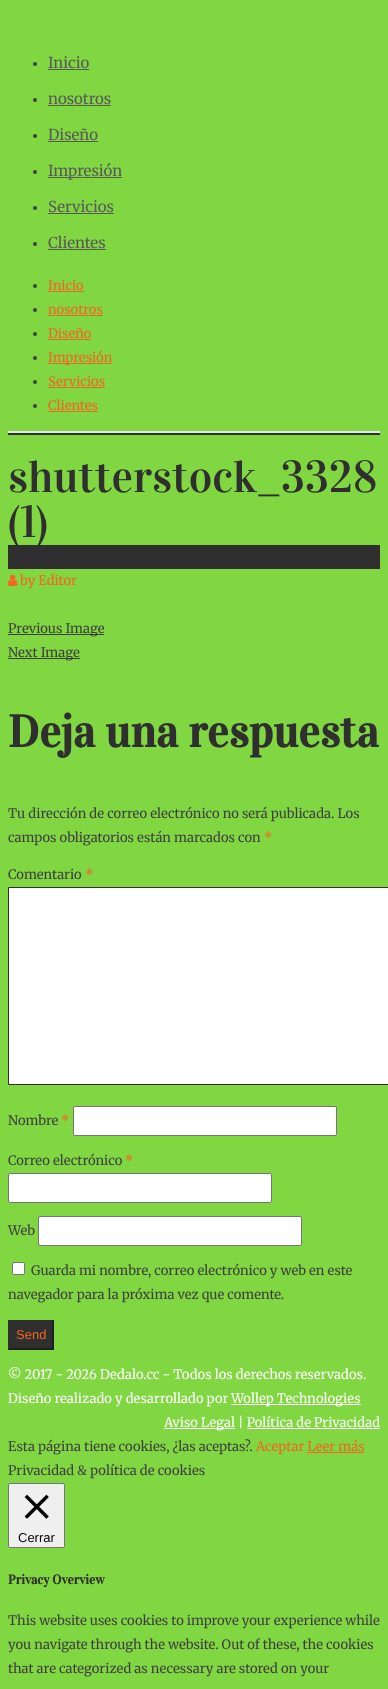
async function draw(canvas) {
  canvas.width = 388
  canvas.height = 1689
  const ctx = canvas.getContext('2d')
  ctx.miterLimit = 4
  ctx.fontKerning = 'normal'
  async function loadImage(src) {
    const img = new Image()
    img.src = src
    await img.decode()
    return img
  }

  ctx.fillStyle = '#81d742'
  ctx.fillRect(0, 0, 388, 1689)
  ctx.fillStyle = '#e6e6e6'
  ctx.fillRect(8, 431, 372, 2)
  ctx.fillStyle = '#3f3f3f'
  ctx.beginPath()
  ctx.arc(35, 64, 2, 0, 2 * Math.PI)
  ctx.fill()
  ctx.font = '15px Merriweather'
  ctx.fillStyle = '#595959'
  ctx.fillText('Inicio', 48, 68)
  ctx.fillRect(48, 69, 41, 1)
  ctx.fillStyle = '#3f3f3f'
  ctx.beginPath()
  ctx.arc(35, 100, 2, 0, 2 * Math.PI)
  ctx.fill()
  ctx.fillStyle = '#595959'
  ctx.fillText('nosotros', 48, 104)
  ctx.fillRect(48, 105, 63, 1)
  ctx.fillStyle = '#3f3f3f'
  ctx.beginPath()
  ctx.arc(35, 136, 2, 0, 2 * Math.PI)
  ctx.fill()
  ctx.fillStyle = '#595959'
  ctx.fillText('Diseño', 48, 140)
  ctx.fillRect(48, 141, 50, 1)
  ctx.fillStyle = '#3f3f3f'
  ctx.beginPath()
  ctx.arc(35, 172, 2, 0, 2 * Math.PI)
  ctx.fill()
  ctx.fillStyle = '#595959'
  ctx.fillRect(48, 177, 74, 1)
  ctx.fillText('Impresión', 48, 176)
  ctx.fillStyle = '#3f3f3f'
  ctx.beginPath()
  ctx.arc(35, 208, 2, 0, 2 * Math.PI)
  ctx.fill()
  ctx.fillStyle = '#595959'
  ctx.fillText('Servicios', 48, 212)
  ctx.fillRect(48, 213, 66, 1)
  ctx.fillStyle = '#3f3f3f'
  ctx.beginPath()
  ctx.arc(35, 244, 2, 0, 2 * Math.PI)
  ctx.fill()
  ctx.fillStyle = '#595959'
  ctx.fillText('Clientes', 48, 248)
  ctx.fillRect(48, 249, 58, 1)
  ctx.fillStyle = '#3f3f3f'
  ctx.beginPath()
  ctx.arc(35, 286, 2, 0, 2 * Math.PI)
  ctx.fill()
  ctx.font = '13px Merriweather'
  ctx.fillStyle = '#f26522'
  ctx.fillText('Inicio', 48, 290)
  ctx.fillRect(48, 291, 36, 1)
  ctx.fillStyle = '#3f3f3f'
  ctx.beginPath()
  ctx.arc(35, 310, 2, 0, 2 * Math.PI)
  ctx.fill()
  ctx.fillStyle = '#f26522'
  ctx.fillText('nosotros', 48, 314)
  ctx.fillRect(48, 315, 55, 1)
  ctx.fillStyle = '#3f3f3f'
  ctx.beginPath()
  ctx.arc(35, 334, 2, 0, 2 * Math.PI)
  ctx.fill()
  ctx.fillStyle = '#f26522'
  ctx.fillText('Diseño', 48, 338)
  ctx.fillRect(48, 339, 43, 1)
  ctx.fillStyle = '#3f3f3f'
  ctx.beginPath()
  ctx.arc(35, 358, 2, 0, 2 * Math.PI)
  ctx.fill()
  ctx.fillStyle = '#f26522'
  ctx.fillRect(48, 363, 64, 1)
  ctx.fillText('Impresión', 48, 362)
  ctx.fillStyle = '#3f3f3f'
  ctx.beginPath()
  ctx.arc(35, 382, 2, 0, 2 * Math.PI)
  ctx.fill()
  ctx.fillStyle = '#f26522'
  ctx.fillText('Servicios', 48, 386)
  ctx.fillRect(48, 387, 57, 1)
  ctx.fillStyle = '#3f3f3f'
  ctx.beginPath()
  ctx.arc(35, 406, 2, 0, 2 * Math.PI)
  ctx.fill()
  ctx.fillStyle = '#f26522'
  ctx.fillText('Clientes', 48, 410)
  ctx.fillRect(48, 411, 50, 1)
  ctx.fillStyle = '#2f2f2f'
  ctx.fillRect(8, 433, 372, 2)
  ctx.font = '45px Vidaloka'
  ctx.fillText('shutterstock_3328', 8, 492)
  ctx.fillRect(8, 545, 372, 24)
  ctx.fillText('(1)', 8, 537)
  ctx.drawImage(await loadImage('image0.png'), 8, 574, 10, 12)
  ctx.font = '13px Merriweather'
  ctx.fillStyle = '#f26522'
  ctx.fillText('by Editor', 20, 585)
  ctx.fillStyle = '#3f3f3f'
  ctx.fillRect(8, 634, 96, 1)
  ctx.fillText('Previous Image', 8, 633)
  ctx.fillRect(8, 658, 72, 1)
  ctx.fillText('Next Image', 8, 657)
  ctx.font = 'bold 45px Vidaloka'
  ctx.fillStyle = '#2f2f2f'
  ctx.fillText('Deja una respuesta', 8, 747)
  ctx.font = '13px Merriweather'
  ctx.fillStyle = '#3f3f3f'
  ctx.fillText('Tu dirección de correo electrónico no será publicada. Los', 8, 818)
  ctx.fillText('campos obligatorios están marcados con', 8, 842)
  ctx.fillStyle = '#f26522'
  ctx.fillText('*', 264, 842)
  ctx.fillStyle = '#3f3f3f'
  ctx.fillText('Comentario', 8, 879)
  ctx.fillStyle = '#f26522'
  ctx.fillText('*', 85, 879)
  ctx.fillStyle = '#fff'
  ctx.beginPath()
  ctx.rect(8.5, 887.5, 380, 197)
  ctx.fill()
  ctx.strokeStyle = '#2f2f2f'
  ctx.stroke()
  ctx.fillStyle = '#3f3f3f'
  ctx.fillText('Nombre', 8, 1125)
  ctx.fillStyle = '#f26522'
  ctx.fillText('*', 61, 1125)
  ctx.fillStyle = '#fff'
  ctx.beginPath()
  ctx.roundRect(73.5, 1106.5, 263, 29, 1.5)
  ctx.fill()
  ctx.strokeStyle = '#767676'
  ctx.stroke()
  ctx.fillStyle = '#3f3f3f'
  ctx.fillText('Correo electrónico', 8, 1165)
  ctx.fillStyle = '#f26522'
  ctx.fillText('*', 125, 1165)
  ctx.fillStyle = '#fff'
  ctx.beginPath()
  ctx.roundRect(8.5, 1173.5, 263, 29, 1.5)
  ctx.fill()
  ctx.stroke()
  ctx.fillStyle = '#3f3f3f'
  ctx.fillText('Web', 8, 1235)
  ctx.fillStyle = '#fff'
  ctx.beginPath()
  ctx.roundRect(38.5, 1216.5, 263, 29, 1.5)
  ctx.fill()
  ctx.stroke()
  ctx.beginPath()
  ctx.roundRect(12.5, 1262.5, 12, 12, 1.5)
  ctx.fill()
  ctx.stroke()
  ctx.fillStyle = '#3f3f3f'
  ctx.fillText('Guarda mi nombre, correo electrónico y web en este', 31, 1275)
  ctx.fillText('navegador para la próxima vez que comente.', 8, 1299)
  ctx.fillStyle = '#2f2f2f'
  ctx.fillRect(8, 1320, 46, 30)
  ctx.fillStyle = '#1f1f1f'
  ctx.beginPath()
  ctx.moveTo(54, 1320)
  ctx.lineTo(54, 1350)
  ctx.lineTo(52, 1348)
  ctx.lineTo(52, 1322)
  ctx.closePath()
  ctx.fill()
  ctx.beginPath()
  ctx.moveTo(54, 1350)
  ctx.lineTo(8, 1350)
  ctx.lineTo(10, 1348)
  ctx.lineTo(52, 1348)
  ctx.closePath()
  ctx.fill()
  ctx.fillStyle = '#2f2f2f'
  ctx.beginPath()
  ctx.moveTo(8, 1350)
  ctx.lineTo(8, 1320)
  ctx.lineTo(10, 1322)
  ctx.lineTo(10, 1348)
  ctx.closePath()
  ctx.fill()
  ctx.font = '13px Liberation Sans'
  ctx.fillStyle = '#f26522'
  ctx.fillText('Send', 16, 1339)
  ctx.font = '13px Merriweather'
  ctx.fillStyle = '#fff'
  ctx.fillText('© 2017 - 2026 Dedalo.cc - Todos los derechos reservados.', 8, 1379)
  ctx.fillText('Diseño realizado y desarrollado por', 8, 1403)
  ctx.fillRect(231, 1404, 130, 1)
  ctx.fillText('Wollep Technologies', 231, 1403)
  ctx.fillRect(164, 1428, 71, 1)
  ctx.fillText('Aviso Legal | Política de Privacidad', 164, 1427)
  ctx.fillRect(247, 1428, 133, 1)
  ctx.fillStyle = '#3f3f3f'
  ctx.fillText('Esta página tiene cookies, ¿las aceptas?.', 8, 1451)
  ctx.fillStyle = '#f26522'
  ctx.fillText('Aceptar Leer más', 256, 1451)
  ctx.fillRect(307, 1452, 57, 1)
  ctx.fillStyle = '#3f3f3f'
  ctx.fillText('Privacidad & política de cookies', 8, 1475)
  ctx.fillStyle = '#efefef'
  ctx.beginPath()
  ctx.roundRect(8.5, 1483.5, 56, 64, 1.5)
  ctx.fill()
  ctx.stroke()
  ctx.drawImage(await loadImage('image1.png'), 24, 1494, 25, 25)
  ctx.font = '13px Liberation Sans'
  ctx.fillStyle = '#000'
  ctx.fillText('Cerrar', 18, 1542)
  ctx.font = 'bold 13px Vidaloka'
  ctx.fillStyle = '#2f2f2f'
  ctx.fillText('Privacy Overview', 8, 1584)
  ctx.font = '13px Merriweather'
  ctx.fillStyle = '#3f3f3f'
  ctx.fillText('This website uses cookies to improve your experience while', 8, 1625)
  ctx.fillText('you navigate through the website. Out of these, the cookies', 8, 1649)
  ctx.fillText('that are categorized as necessary are stored on your', 8, 1673)
}

draw(document.querySelector('canvas'))
